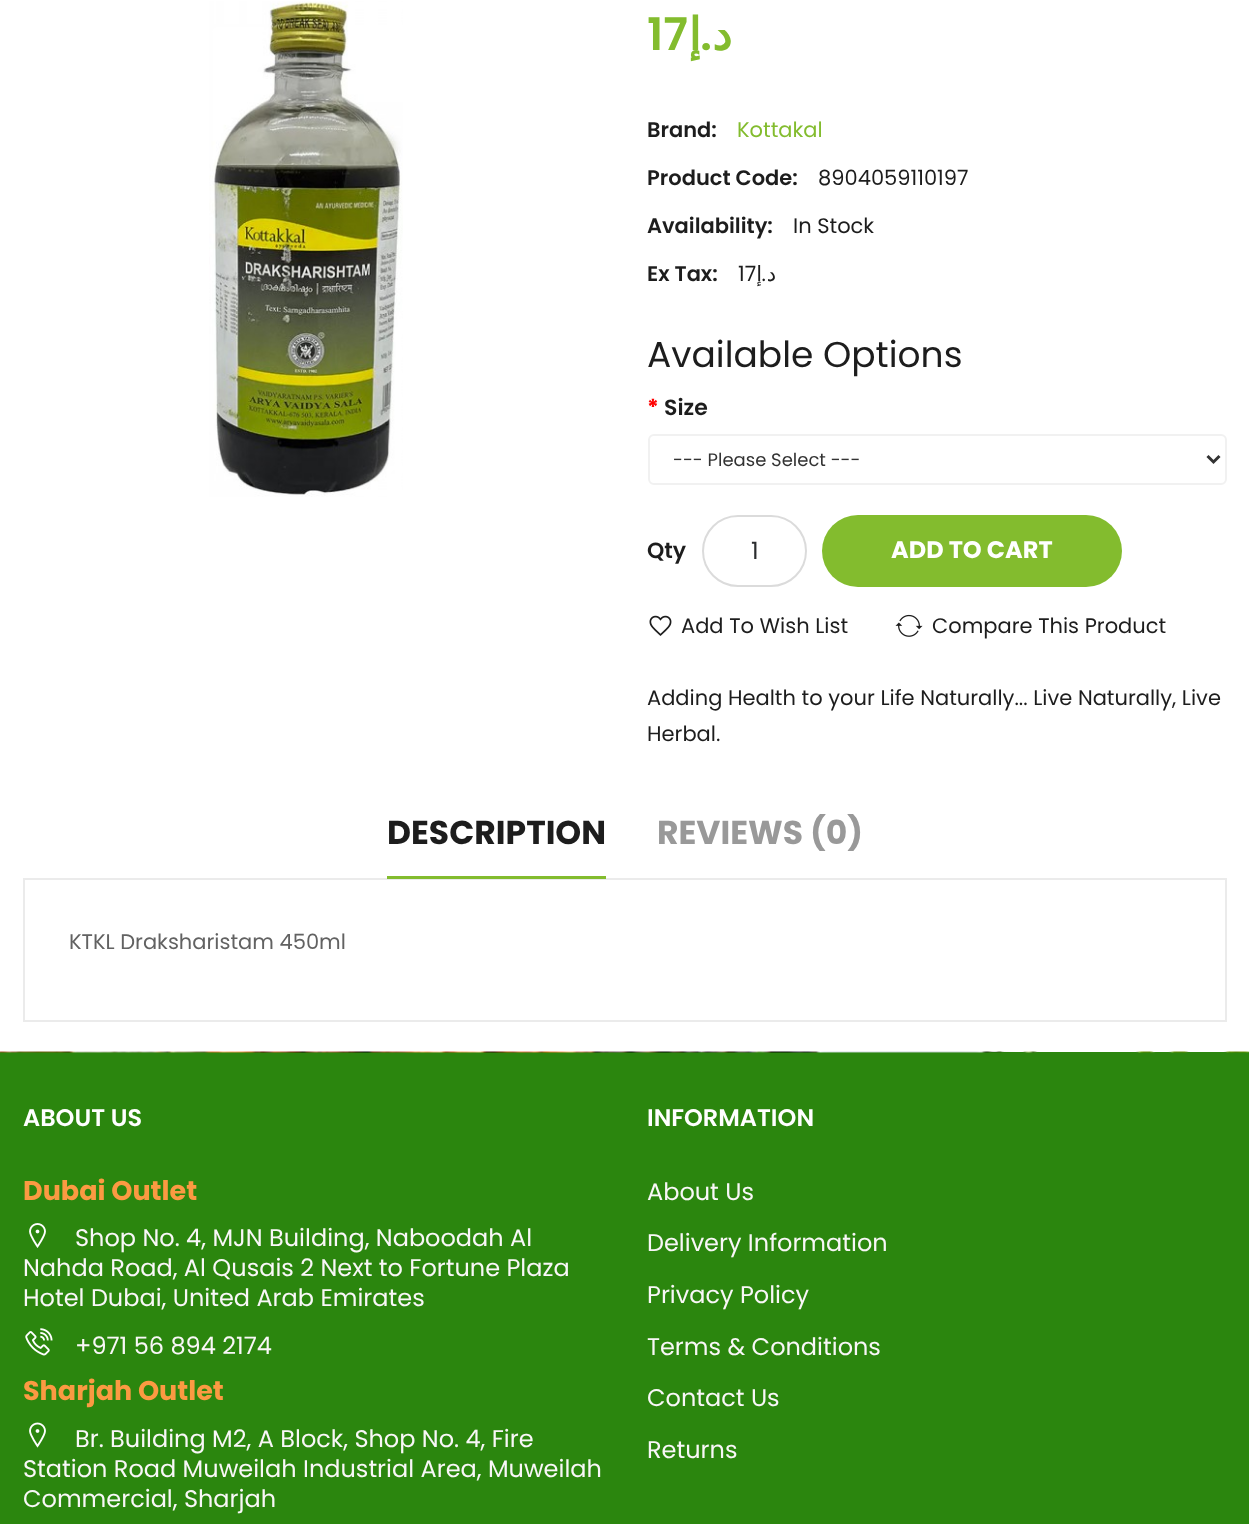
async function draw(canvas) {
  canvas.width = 1249
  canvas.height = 1524
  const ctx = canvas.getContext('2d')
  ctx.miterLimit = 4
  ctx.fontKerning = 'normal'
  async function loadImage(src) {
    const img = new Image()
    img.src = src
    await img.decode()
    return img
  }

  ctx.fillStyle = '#fff'
  ctx.fillRect(0, 0, 1249, 1524)
  ctx.drawImage(await loadImage('image0.png'), 209, 1, 194, 496)
  ctx.font = '600 45px Poppins'
  ctx.fillStyle = '#83bc2e'
  ctx.fillText('17', 647, 50)
  ctx.direction = 'rtl'
  ctx.font = 'bold 45px DejaVu Sans'
  ctx.fillText('إ', 701, 50)
  ctx.font = '600 45px Poppins'
  ctx.fillText('.', 712, 50)
  ctx.font = 'bold 45px DejaVu Sans'
  ctx.fillText('د', 732, 50)
  ctx.direction = 'ltr'
  ctx.font = '600 21px Poppins'
  ctx.fillStyle = '#1d1d1d'
  ctx.fillText('Brand:', 647, 137)
  ctx.font = '21px Poppins'
  ctx.fillStyle = '#83bc2e'
  ctx.fillText('Kottakal', 737, 137)
  ctx.font = '600 21px Poppins'
  ctx.fillStyle = '#1d1d1d'
  ctx.fillText('Product Code:', 647, 185)
  ctx.font = '21px Poppins'
  ctx.fillText('8904059110197', 818, 185)
  ctx.font = '600 21px Poppins'
  ctx.fillText('Availability:', 647, 233)
  ctx.font = '21px Poppins'
  ctx.fillText('In Stock', 793, 233)
  ctx.font = '600 21px Poppins'
  ctx.fillText('Ex Tax:', 647, 281)
  ctx.font = '21px Poppins'
  ctx.fillText('17', 738, 281)
  ctx.direction = 'rtl'
  ctx.font = '21px DejaVu Sans'
  ctx.fillText('إ', 762, 281)
  ctx.font = '21px Poppins'
  ctx.fillText('.', 766, 281)
  ctx.font = '21px DejaVu Sans'
  ctx.fillText('د', 776, 281)
  ctx.direction = 'ltr'
  ctx.font = '36px Poppins'
  ctx.fillText('Available Options', 647, 367)
  ctx.font = 'bold 22px Poppins'
  ctx.fillStyle = '#f00'
  ctx.fillText('*', 647, 415)
  ctx.font = '600 22px Poppins'
  ctx.fillStyle = '#1d1d1d'
  ctx.fillText('Size', 664, 415)
  ctx.beginPath()
  ctx.roundRect(649, 435, 577, 49, 5)
  ctx.strokeStyle = '#f1f1f1'
  ctx.lineWidth = 2
  ctx.stroke()
  ctx.beginPath()
  ctx.moveTo(1207.5, 456)
  ctx.lineTo(1213.5, 462)
  ctx.lineTo(1219.5, 456)
  ctx.strokeStyle = '#333'
  ctx.lineWidth = 3
  ctx.stroke()
  ctx.font = '18px Poppins'
  ctx.fillStyle = '#333'
  ctx.fillText('--- Please Select ---', 673, 466)
  ctx.font = '600 22px Poppins'
  ctx.fillStyle = '#1d1d1d'
  ctx.fillText('Qty', 647, 558)
  ctx.beginPath()
  ctx.roundRect(703, 516, 103, 70, 35)
  ctx.strokeStyle = '#dbdbdb'
  ctx.lineWidth = 2
  ctx.stroke()
  ctx.font = '24px Poppins'
  ctx.fillStyle = '#2b2d2f'
  ctx.fillText('1', 751, 559)
  ctx.fillStyle = '#83bc2e'
  ctx.beginPath()
  ctx.roundRect(822, 515, 300, 72, 36)
  ctx.fill()
  ctx.font = 'bold 24px Poppins'
  ctx.fillStyle = '#fff'
  ctx.fillText('ADD TO CART', 891, 558)
  ctx.drawImage(await loadImage('image1.png'), 649, 615, 23, 21)
  ctx.font = '21px Poppins'
  ctx.fillStyle = '#1d1d1d'
  ctx.fillText('Add To Wish List', 681, 633)
  ctx.drawImage(await loadImage('image2.png'), 895, 614, 28, 23)
  ctx.fillText('Compare This Product', 932, 633)
  ctx.fillText('Adding Health to your Life Naturally... Live Naturally, Live', 647, 705)
  ctx.fillText('Herbal.', 647, 741)
  ctx.font = 'bold 33px Poppins'
  ctx.fillText('DESCRIPTION', 387, 844)
  ctx.strokeStyle = '#ebebeb'
  ctx.strokeRect(24, 879, 1202, 142)
  ctx.fillStyle = '#83bc2e'
  ctx.fillRect(387, 876, 219, 3)
  ctx.fillStyle = '#999'
  ctx.fillText('REVIEWS (0)', 657, 844)
  ctx.font = '21px Poppins'
  ctx.fillStyle = '#626262'
  ctx.fillText('KTKL Draksharistam 450ml', 69, 949)
  ctx.fillStyle = '#2b860e'
  ctx.fillRect(0, 1052, 1249, 472)
  ctx.drawImage(await loadImage('image3.png'), 0, 1051, 1249, 2)
  ctx.font = '600 24px Poppins'
  ctx.fillStyle = '#fff'
  ctx.fillText('ABOUT US', 23, 1126)
  ctx.font = 'bold 27px Poppins'
  ctx.fillStyle = '#fb9a42'
  ctx.fillText('Dubai Outlet', 23, 1200)
  ctx.drawImage(await loadImage('image4.png'), 29, 1223, 17, 25)
  ctx.font = '24px Poppins'
  ctx.fillStyle = '#f9f7f7'
  ctx.fillText('Shop No. 4, MJN Building, Naboodah Al', 75, 1246)
  ctx.fillText('Nahda Road, Al Qusais 2 Next to Fortune Plaza', 23, 1276)
  ctx.fillText('Hotel Dubai, United Arab Emirates', 23, 1306)
  ctx.drawImage(await loadImage('image5.png'), 25, 1328, 28, 28)
  ctx.fillText('+971 56 894 2174', 75, 1354)
  ctx.font = 'bold 27px Poppins'
  ctx.fillStyle = '#fb9a42'
  ctx.fillText('Sharjah Outlet', 23, 1400)
  ctx.drawImage(await loadImage('image6.png'), 29, 1422, 17, 26)
  ctx.font = '24px Poppins'
  ctx.fillStyle = '#f9f7f7'
  ctx.fillText('Br. Building M2, A Block, Shop No. 4, Fire', 75, 1447)
  ctx.fillText('Station Road Muweilah Industrial Area, Muweilah', 23, 1477)
  ctx.fillText('Commercial, Sharjah', 23, 1507)
  ctx.font = '600 24px Poppins'
  ctx.fillStyle = '#fff'
  ctx.fillText('INFORMATION', 647, 1126)
  ctx.font = '24px Poppins'
  ctx.fillStyle = '#f9f7f7'
  ctx.fillText('About Us', 647, 1200)
  ctx.fillText('Delivery Information', 647, 1251)
  ctx.fillText('Privacy Policy', 647, 1303)
  ctx.fillText('Terms & Conditions', 647, 1355)
  ctx.fillText('Contact Us', 647, 1406)
  ctx.fillText('Returns', 647, 1458)
}

draw(document.querySelector('canvas'))
